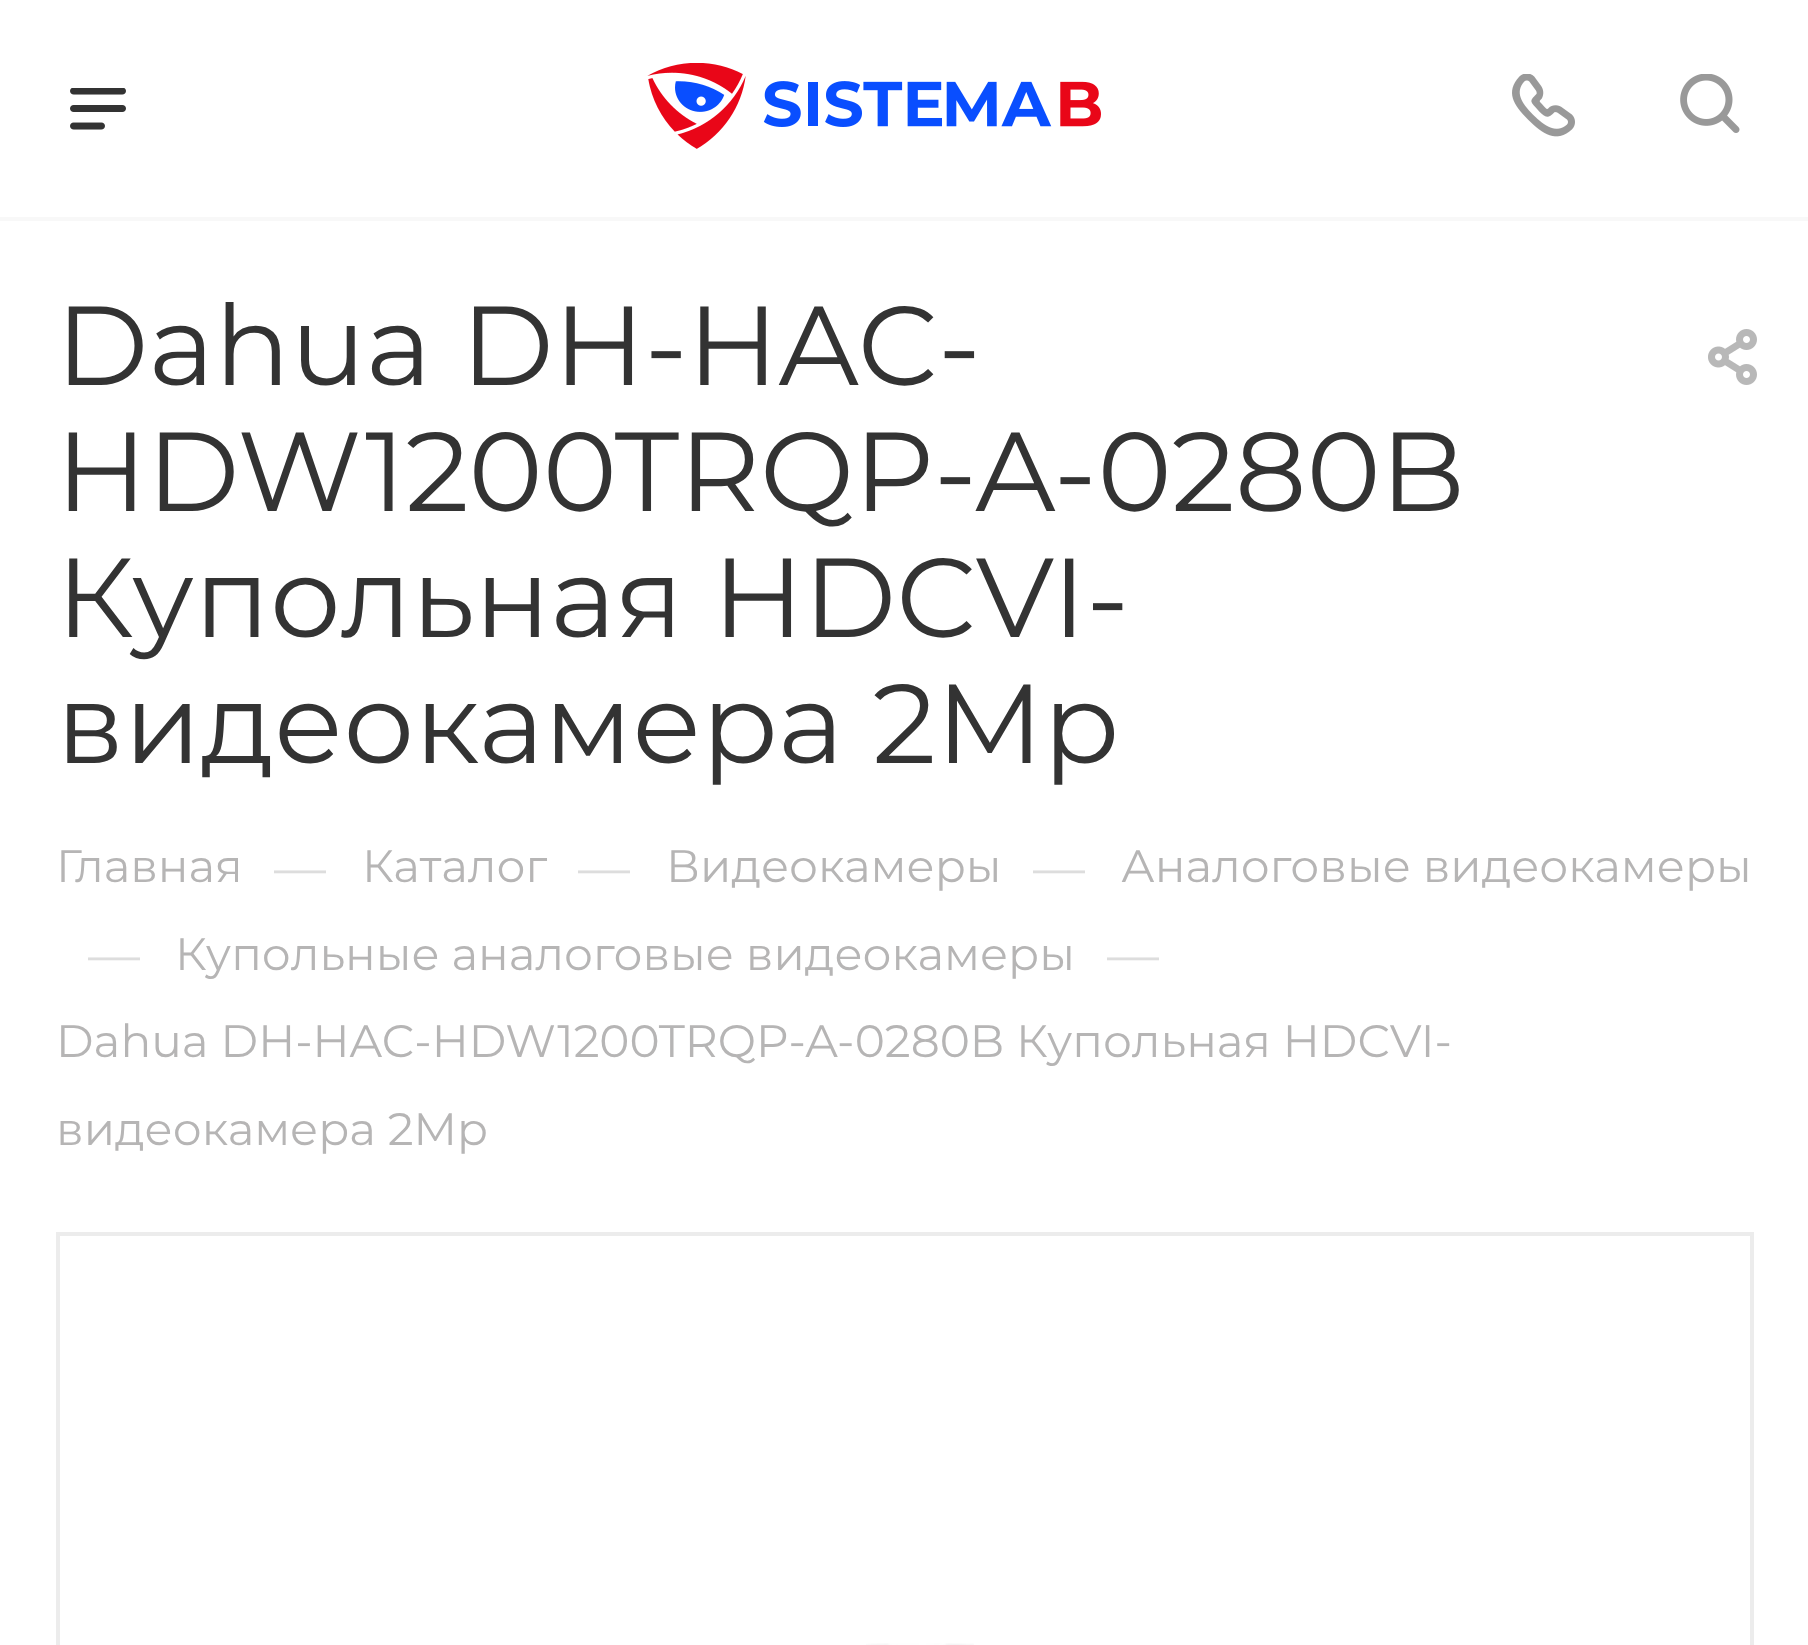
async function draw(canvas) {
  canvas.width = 1808
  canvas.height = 1645
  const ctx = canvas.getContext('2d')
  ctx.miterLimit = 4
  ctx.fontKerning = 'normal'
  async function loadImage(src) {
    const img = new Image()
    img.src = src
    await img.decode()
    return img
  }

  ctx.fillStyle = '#fff'
  ctx.fillRect(0, 0, 1808, 1645)
  ctx.fillStyle = '#f8f8f8'
  ctx.fillRect(0, 217, 1808, 4)
  ctx.drawImage(await loadImage('image0.png'), 70, 88, 56, 42)
  ctx.drawImage(await loadImage('image1.png'), 647, 63, 454, 86)
  ctx.drawImage(await loadImage('image2.png'), 1512, 74, 63, 63)
  ctx.drawImage(await loadImage('image3.png'), 1680, 74, 60, 59)
  ctx.font = '112px Montserrat'
  ctx.fillStyle = '#333'
  ctx.fillText('Dahua DH-HAC-', 56, 385)
  ctx.fillText('HDW1200TRQP-A-0280B', 56, 511)
  ctx.fillText('Купольная HDCVI-', 56, 637)
  ctx.fillText('видеокамера 2Mp', 56, 763)
  ctx.drawImage(await loadImage('image4.png'), 1708, 329, 49, 56)
  ctx.font = '45.5px Montserrat'
  ctx.fillStyle = '#b6b5b5'
  ctx.fillText('Главная', 56, 882)
  ctx.font = '52px Montserrat'
  ctx.fillStyle = '#ddd'
  ctx.fillText('—', 274, 886)
  ctx.font = '45.5px Montserrat'
  ctx.fillStyle = '#b6b5b5'
  ctx.fillText('Каталог', 362, 882)
  ctx.font = '52px Montserrat'
  ctx.fillStyle = '#ddd'
  ctx.fillText('—', 578, 886)
  ctx.font = '45.5px Montserrat'
  ctx.fillStyle = '#b6b5b5'
  ctx.fillText('Видеокамеры', 666, 882)
  ctx.font = '52px Montserrat'
  ctx.fillStyle = '#ddd'
  ctx.fillText('—', 1033, 886)
  ctx.font = '45.5px Montserrat'
  ctx.fillStyle = '#b6b5b5'
  ctx.fillText('Аналоговые видеокамеры', 1121, 882)
  ctx.font = '52px Montserrat'
  ctx.fillStyle = '#ddd'
  ctx.fillText('—', 88, 973)
  ctx.font = '45.5px Montserrat'
  ctx.fillStyle = '#b6b5b5'
  ctx.fillText('Купольные аналоговые видеокамеры', 175, 970)
  ctx.font = '52px Montserrat'
  ctx.fillStyle = '#ddd'
  ctx.fillText('—', 1107, 973)
  ctx.font = '45.5px Montserrat'
  ctx.fillStyle = '#b6b5b5'
  ctx.fillText('Dahua DH-HAC-HDW1200TRQP-A-0280B Купольная HDCVI-', 56, 1057)
  ctx.fillText('видеокамера 2Mp', 56, 1145)
  ctx.strokeStyle = '#ececec'
  ctx.lineWidth = 4
  ctx.strokeRect(58, 1234, 1694, 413)
  ctx.drawImage(await loadImage('image5.png'), 866, 1643, 108, 2)
}

draw(document.querySelector('canvas'))
